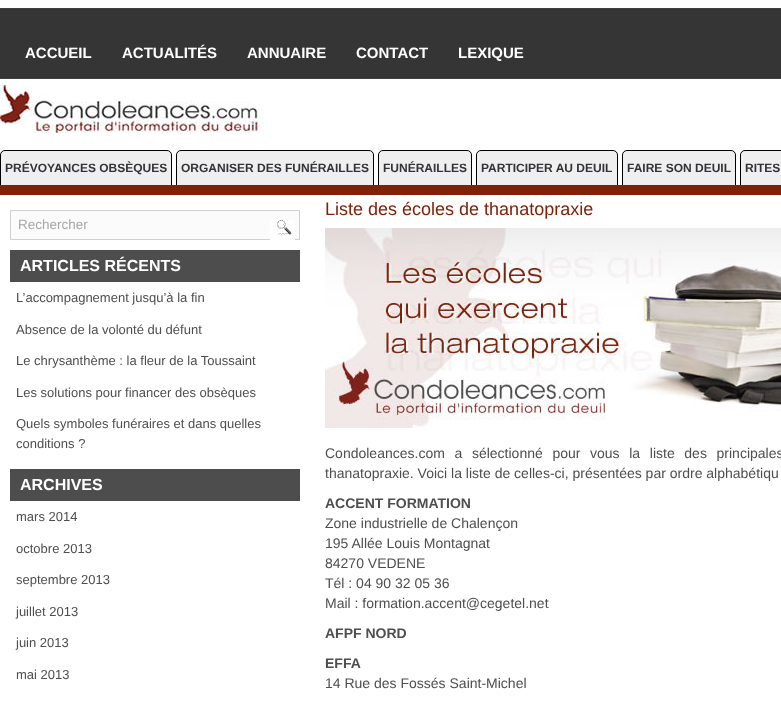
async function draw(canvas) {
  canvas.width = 781
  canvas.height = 704
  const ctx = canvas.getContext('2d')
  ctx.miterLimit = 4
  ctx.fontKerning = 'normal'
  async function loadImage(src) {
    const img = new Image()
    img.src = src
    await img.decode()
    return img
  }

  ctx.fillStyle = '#fff'
  ctx.fillRect(0, 0, 781, 704)
  ctx.drawImage(await loadImage('image0.png'), 0, 8, 781, 177)
  ctx.font = 'bold 15px Liberation Sans'
  ctx.fillText('ACCUEIL', 25, 58)
  ctx.fillText('ACTUALITÉS', 122, 58)
  ctx.fillText('ANNUAIRE', 247, 58)
  ctx.fillText('CONTACT', 356, 58)
  ctx.fillText('LEXIQUE', 458, 58)
  ctx.drawImage(await loadImage('image1.png'), 0, 85, 264, 48)
  ctx.fillStyle = '#802108'
  ctx.fillRect(0, 185, 781, 10)
  ctx.fillStyle = '#efefef'
  ctx.beginPath()
  ctx.roundRect(0, 150, 172, 35, [5, 5, 0, 0])
  ctx.fill()
  ctx.save()
  ctx.beginPath()
  ctx.rect(0, 150, 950, 35)
  ctx.clip()
  ctx.beginPath()
  ctx.roundRect(0.5, 150.5, 171, 35, [4.5, 4.5, 0, 0])
  ctx.strokeStyle = '#000'
  ctx.stroke()
  ctx.restore()
  ctx.font = 'bold 12px Liberation Sans'
  ctx.fillStyle = '#323337'
  ctx.fillText('PRÉVOYANCES OBSÈQUES', 5, 172)
  ctx.fillStyle = '#efefef'
  ctx.beginPath()
  ctx.roundRect(176, 150, 198, 35, [5, 5, 0, 0])
  ctx.fill()
  ctx.save()
  ctx.beginPath()
  ctx.rect(0, 150, 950, 35)
  ctx.clip()
  ctx.beginPath()
  ctx.roundRect(176.5, 150.5, 197, 35, [4.5, 4.5, 0, 0])
  ctx.strokeStyle = '#000'
  ctx.stroke()
  ctx.restore()
  ctx.fillStyle = '#323337'
  ctx.fillText('ORGANISER DES FUNÉRAILLES', 181, 172)
  ctx.fillStyle = '#efefef'
  ctx.beginPath()
  ctx.roundRect(378, 150, 94, 35, [5, 5, 0, 0])
  ctx.fill()
  ctx.save()
  ctx.beginPath()
  ctx.rect(0, 150, 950, 35)
  ctx.clip()
  ctx.beginPath()
  ctx.roundRect(378.5, 150.5, 93, 35, [4.5, 4.5, 0, 0])
  ctx.strokeStyle = '#000'
  ctx.stroke()
  ctx.restore()
  ctx.fillStyle = '#323337'
  ctx.fillText('FUNÉRAILLES', 383, 172)
  ctx.fillStyle = '#efefef'
  ctx.beginPath()
  ctx.roundRect(476, 150, 142, 35, [5, 5, 0, 0])
  ctx.fill()
  ctx.save()
  ctx.beginPath()
  ctx.rect(0, 150, 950, 35)
  ctx.clip()
  ctx.beginPath()
  ctx.roundRect(476.5, 150.5, 141, 35, [4.5, 4.5, 0, 0])
  ctx.strokeStyle = '#000'
  ctx.stroke()
  ctx.restore()
  ctx.fillStyle = '#323337'
  ctx.fillText('PARTICIPER AU DEUIL', 481, 172)
  ctx.fillStyle = '#efefef'
  ctx.beginPath()
  ctx.roundRect(622, 150, 114, 35, [5, 5, 0, 0])
  ctx.fill()
  ctx.save()
  ctx.beginPath()
  ctx.rect(0, 150, 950, 35)
  ctx.clip()
  ctx.beginPath()
  ctx.roundRect(622.5, 150.5, 113, 35, [4.5, 4.5, 0, 0])
  ctx.strokeStyle = '#000'
  ctx.stroke()
  ctx.restore()
  ctx.fillStyle = '#323337'
  ctx.fillText('FAIRE SON DEUIL', 627, 172)
  ctx.fillStyle = '#efefef'
  ctx.beginPath()
  ctx.moveTo(745, 150)
  ctx.lineTo(781, 150)
  ctx.bezierCurveTo(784, 150, 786, 152, 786, 155)
  ctx.lineTo(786, 185)
  ctx.lineTo(740, 185)
  ctx.lineTo(740, 155)
  ctx.bezierCurveTo(740, 152, 742, 150, 745, 150)
  ctx.closePath()
  ctx.fill()
  ctx.save()
  ctx.beginPath()
  ctx.rect(0, 150, 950, 35)
  ctx.clip()
  ctx.beginPath()
  ctx.moveTo(745, 150.5)
  ctx.lineTo(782, 150.5)
  ctx.bezierCurveTo(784.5, 150.5, 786.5, 152.5, 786.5, 155)
  ctx.lineTo(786.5, 185.5)
  ctx.lineTo(740.5, 185.5)
  ctx.lineTo(740.5, 155)
  ctx.bezierCurveTo(740.5, 152.5, 742.5, 150.5, 745, 150.5)
  ctx.closePath()
  ctx.strokeStyle = '#000'
  ctx.stroke()
  ctx.restore()
  ctx.fillStyle = '#323337'
  ctx.fillText('RITES', 745, 172)
  ctx.fillStyle = '#fbfbfb'
  ctx.beginPath()
  ctx.rect(10.5, 210.5, 289, 29)
  ctx.fill()
  ctx.strokeStyle = '#cfd0d0'
  ctx.stroke()
  ctx.font = '13.5px Liberation Sans'
  ctx.fillStyle = '#a8a8a8'
  ctx.fillText('Rechercher', 18, 229)
  ctx.drawImage(await loadImage('image2.png'), 270, 220, 25, 20)
  ctx.fillStyle = '#4e4d4d'
  ctx.fillRect(10, 250, 290, 32)
  ctx.font = 'bold 16px Liberation Sans'
  ctx.fillStyle = '#fff'
  ctx.fillText('ARTICLES RÉCENTS', 20, 271)
  ctx.font = '13px Liberation Sans'
  ctx.fillStyle = '#504d4d'
  ctx.fillText('L’accompagnement jusqu’à la fin', 16, 302)
  ctx.fillText('Absence de la volonté du défunt', 16, 334)
  ctx.fillText('Le chrysanthème : la fleur de la Toussaint', 16, 365)
  ctx.fillText('Les solutions pour financer des obsèques', 16, 397)
  ctx.fillText('Quels symboles funéraires et dans quelles', 16, 428)
  ctx.fillText('conditions ?', 16, 448)
  ctx.fillStyle = '#4e4d4d'
  ctx.fillRect(10, 469, 290, 32)
  ctx.font = 'bold 16px Liberation Sans'
  ctx.fillStyle = '#fff'
  ctx.fillText('ARCHIVES', 20, 490)
  ctx.font = '13px Liberation Sans'
  ctx.fillStyle = '#504d4d'
  ctx.fillText('mars 2014', 16, 521)
  ctx.fillText('octobre 2013', 16, 553)
  ctx.fillText('septembre 2013', 16, 584)
  ctx.fillText('juillet 2013', 16, 616)
  ctx.fillText('juin 2013', 16, 647)
  ctx.fillText('mai 2013', 16, 679)
  ctx.font = '18px Liberation Sans'
  ctx.fillStyle = '#802108'
  ctx.fillText('Liste des écoles de thanatopraxie', 325, 215)
  ctx.drawImage(await loadImage('image3.png'), 325, 228, 456, 200)
  ctx.wordSpacing = '5.75px'
  ctx.font = '14px Liberation Sans'
  ctx.fillStyle = '#504d4d'
  ctx.fillText('Condoleances.com a sélectionné pour vous la liste des principales', 325, 458)
  ctx.wordSpacing = '0px'
  ctx.fillText('thanatopraxie. Voici la liste de celles-ci, présentées par ordre alphabétiqu', 325, 478)
  ctx.font = 'bold 14px Liberation Sans'
  ctx.fillText('ACCENT FORMATION', 325, 508)
  ctx.font = '14px Liberation Sans'
  ctx.fillText('Zone industrielle de Chalençon', 325, 528)
  ctx.fillText('195 Allée Louis Montagnat', 325, 548)
  ctx.fillText('84270 VEDENE', 325, 568)
  ctx.fillText('Tél : 04 90 32 05 36', 325, 588)
  ctx.fillText('Mail : formation.accent@cegetel.net', 325, 608)
  ctx.font = 'bold 14px Liberation Sans'
  ctx.fillText('AFPF NORD', 325, 638)
  ctx.fillText('EFFA', 325, 668)
  ctx.font = '14px Liberation Sans'
  ctx.fillText('14 Rue des Fossés Saint-Michel', 325, 688)
}

draw(document.querySelector('canvas'))
